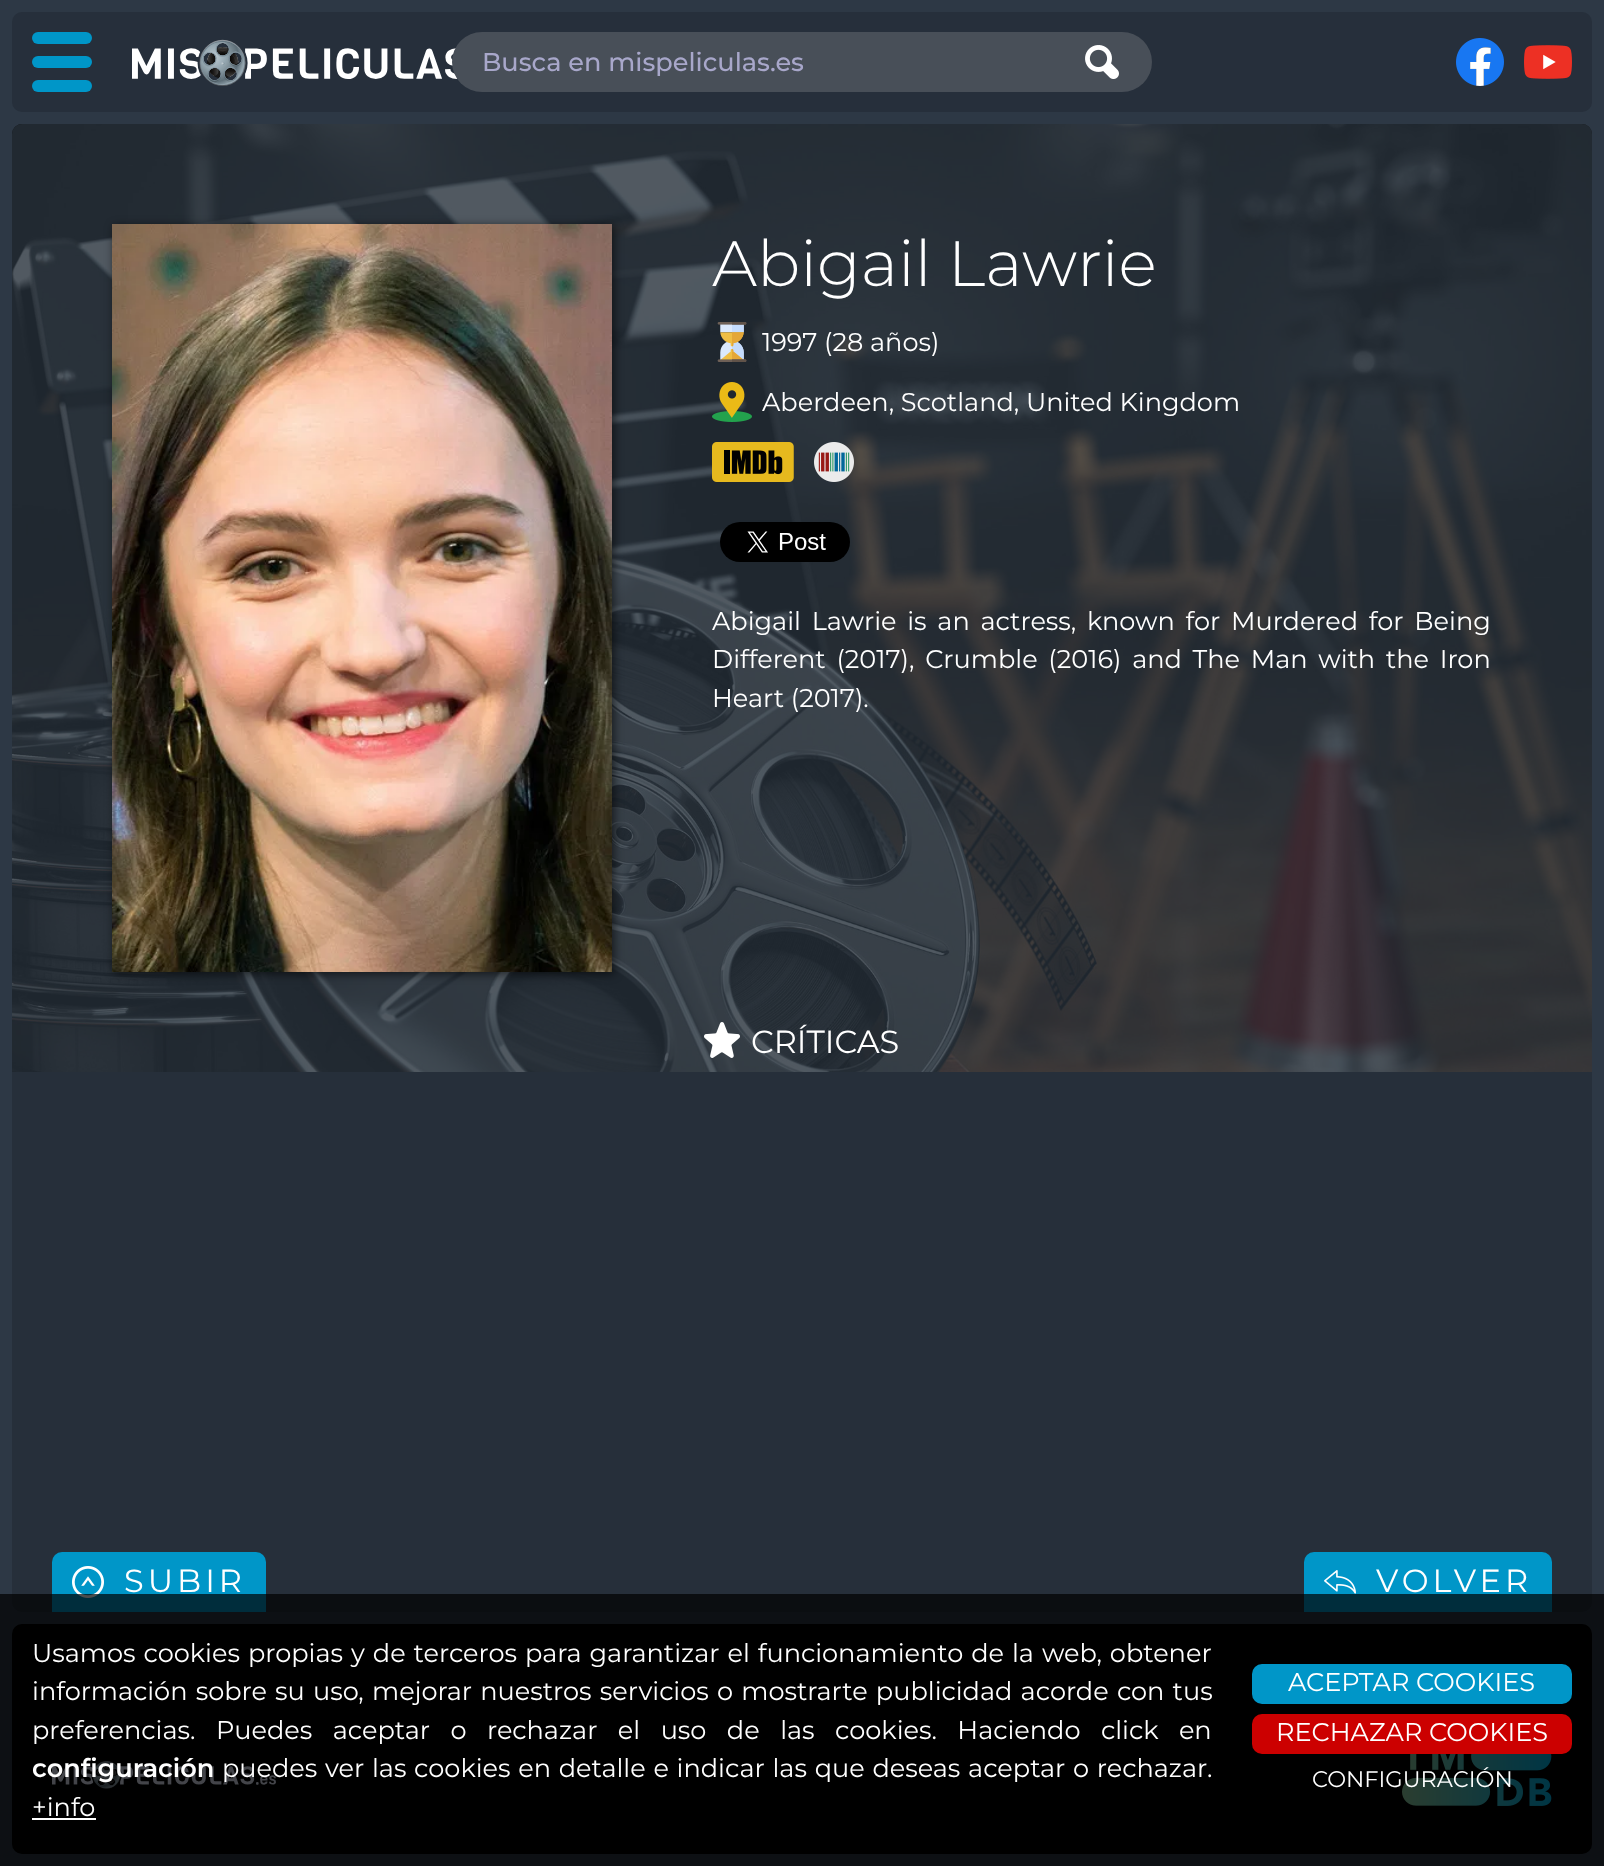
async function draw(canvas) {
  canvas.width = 1604
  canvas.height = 1866
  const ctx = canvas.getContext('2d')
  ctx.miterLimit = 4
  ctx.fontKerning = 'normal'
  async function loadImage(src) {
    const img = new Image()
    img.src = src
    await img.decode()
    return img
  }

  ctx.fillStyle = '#2d3845'
  ctx.fillRect(0, 0, 1604, 1866)
  ctx.fillStyle = '#262f3b'
  ctx.beginPath()
  ctx.roundRect(12, 12, 1580, 100, 10)
  ctx.fill()
  ctx.fillStyle = '#0096c8'
  ctx.beginPath()
  ctx.roundRect(32, 32, 60, 12, 6)
  ctx.fill()
  ctx.beginPath()
  ctx.roundRect(32, 56, 60, 12, 6)
  ctx.fill()
  ctx.beginPath()
  ctx.roundRect(32, 80, 60, 12, 6)
  ctx.fill()
  ctx.drawImage(await loadImage('image0.png'), 132, 39, 326, 47)
  ctx.fillStyle = '#484f58'
  ctx.beginPath()
  ctx.roundRect(452, 32, 700, 60, 30)
  ctx.fill()
  ctx.font = '500 25.6px Montserrat'
  ctx.fillStyle = '#a8a7ca'
  ctx.fillText('Busca en mispeliculas.es', 482, 71)
  ctx.drawImage(await loadImage('image1.png'), 1085, 45, 34, 34)
  ctx.drawImage(await loadImage('image2.png'), 1456, 38, 48, 48)
  ctx.drawImage(await loadImage('image3.png'), 1524, 45, 48, 34)
  ctx.fillStyle = '#262f3a'
  ctx.beginPath()
  ctx.roundRect(12, 124, 1580, 1488, 10)
  ctx.fill()
  ctx.drawImage(await loadImage('image4.png'), 12, 124, 1580, 948)
  ctx.fillStyle = '#262f3acc'
  ctx.beginPath()
  ctx.roundRect(12, 124, 1580, 948, [10, 10, 0, 0])
  ctx.fill()
  ctx.fillStyle = '#00000099'
  ctx.filter = 'blur(5px)'
  ctx.beginPath()
  ctx.rect(114, 226, 500, 748)
  ctx.fill()
  ctx.filter = 'none'
  ctx.drawImage(await loadImage('image5.png'), 112, 224, 500, 748)
  ctx.font = '300 64px Montserrat'
  ctx.fillStyle = '#fff'
  ctx.fillText('Abigail Lawrie', 712, 286)
  ctx.drawImage(await loadImage('image6.png'), 717, 322, 30, 40)
  ctx.font = '25.6px Montserrat'
  ctx.fillText('1997 (28 años)', 762, 351)
  ctx.drawImage(await loadImage('image7.png'), 712, 382, 40, 40)
  ctx.fillText('Aberdeen, Scotland, United Kingdom', 762, 411)
  ctx.drawImage(await loadImage('image8.png'), 712, 442, 82, 40)
  ctx.drawImage(await loadImage('image9.png'), 814, 442, 40, 40)
  ctx.drawImage(await loadImage('image10.png'), 720, 522, 130, 40)
  ctx.wordSpacing = '4px'
  ctx.fillText('Abigail Lawrie is an actress, known for Murdered for Being', 712, 630)
  ctx.fillText('Different (2017), Crumble (2016) and The Man with the Iron', 712, 668)
  ctx.wordSpacing = '0px'
  ctx.fillText('Heart (2017).', 712, 707)
  ctx.drawImage(await loadImage('image11.png'), 704, 1022, 36, 36)
  ctx.font = '32px Montserrat'
  ctx.fillText('CRÍTICAS', 751, 1053)
  ctx.fillStyle = '#0096c8'
  ctx.beginPath()
  ctx.roundRect(52, 1552, 214, 60, [10, 10, 0, 0])
  ctx.fill()
  ctx.drawImage(await loadImage('image12.png'), 72, 1566, 32, 32)
  ctx.letterSpacing = '4px'
  ctx.fillStyle = '#fff'
  ctx.fillText('SUBIR', 124, 1592)
  ctx.fillStyle = '#0096c8'
  ctx.beginPath()
  ctx.roundRect(1304, 1552, 248, 60, [10, 10, 0, 0])
  ctx.fill()
  ctx.drawImage(await loadImage('image13.png'), 1324, 1570, 32, 24)
  ctx.fillStyle = '#fff'
  ctx.fillText('VOLVER', 1376, 1592)
  ctx.fillStyle = '#000'
  ctx.beginPath()
  ctx.roundRect(12, 1624, 1580, 230, 10)
  ctx.fill()
  ctx.drawImage(await loadImage('image14.png'), 52, 1761, 224, 28)
  ctx.drawImage(await loadImage('image15.png'), 1402, 1754, 150, 52)
  ctx.fillStyle = '#000000b3'
  ctx.fillRect(0, 1594, 1604, 272)
  ctx.letterSpacing = '0px'
  ctx.wordSpacing = '1.25px'
  ctx.font = '25.6px Montserrat'
  ctx.fillStyle = '#fff'
  ctx.fillText('Usamos cookies propias y de terceros para garantizar el funcionamiento de la web, obtener', 32, 1662)
  ctx.wordSpacing = '1.5px'
  ctx.fillText('información sobre su uso, mejorar nuestros servicios o mostrarte publicidad acorde con tus', 32, 1700)
  ctx.wordSpacing = '13.75px'
  ctx.fillText('preferencias. Puedes aceptar o rechazar el uso de las cookies. Haciendo click en', 32, 1739)
  ctx.wordSpacing = '0px'
  ctx.font = '600 25.6px Montserrat'
  ctx.fillText('configuración', 32, 1777)
  ctx.wordSpacing = '1px'
  ctx.font = '25.6px Montserrat'
  ctx.fillText('puedes ver las cookies en detalle e indicar las que deseas aceptar o rechazar.', 222, 1777)
  ctx.wordSpacing = '0px'
  ctx.fillText('+info', 32, 1816)
  ctx.fillRect(32, 1818, 64, 2)
  ctx.fillStyle = '#0096c8'
  ctx.beginPath()
  ctx.roundRect(1252, 1664, 320, 40, 10)
  ctx.fill()
  ctx.fillStyle = '#fff'
  ctx.fillText('ACEPTAR COOKIES', 1288, 1691)
  ctx.fillStyle = '#c00'
  ctx.beginPath()
  ctx.roundRect(1252, 1714, 320, 40, 10)
  ctx.fill()
  ctx.fillStyle = '#fff'
  ctx.fillText('RECHAZAR COOKIES', 1276, 1741)
  ctx.font = '22.5px Montserrat'
  ctx.fillText('CONFIGURACIÓN', 1312, 1787)
}

draw(document.querySelector('canvas'))
